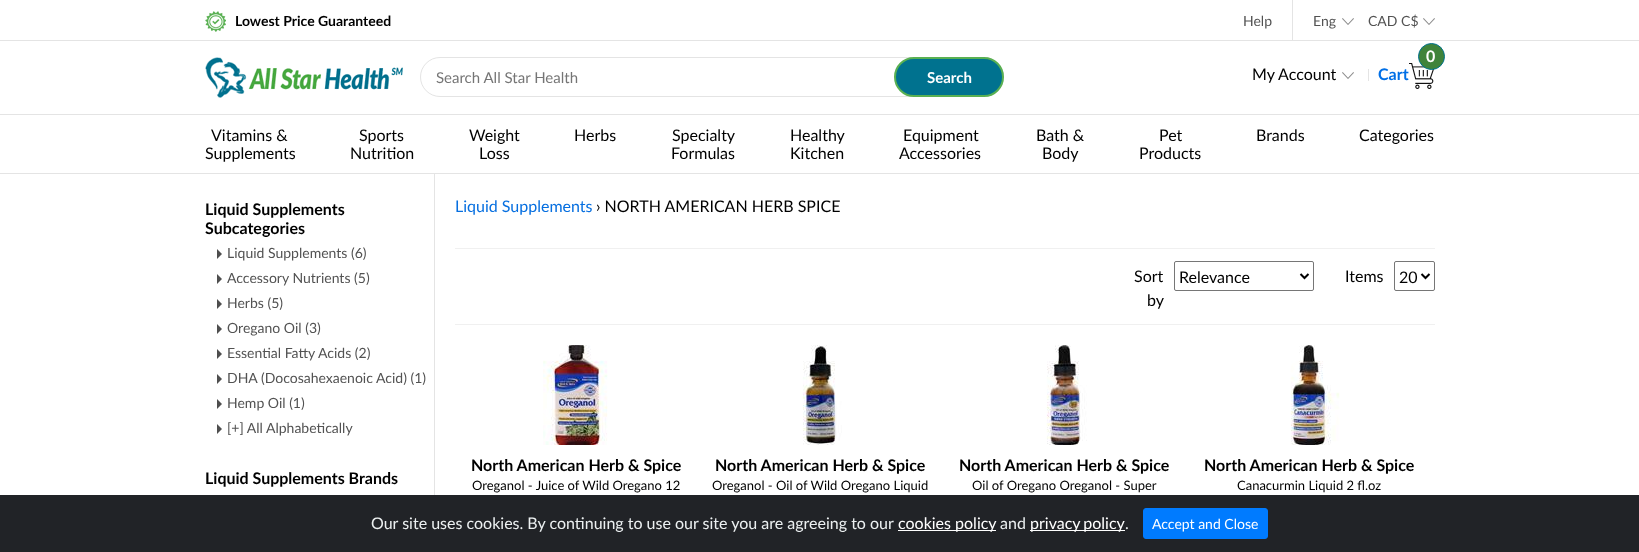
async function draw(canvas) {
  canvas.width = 1639
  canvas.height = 552
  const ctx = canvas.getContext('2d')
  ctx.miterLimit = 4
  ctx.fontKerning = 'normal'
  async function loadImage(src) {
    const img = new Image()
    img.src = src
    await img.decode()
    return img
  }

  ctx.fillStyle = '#fff'
  ctx.fillRect(0, 0, 1639, 552)
  ctx.drawImage(await loadImage('image0.png'), 205, 11, 21, 21)
  ctx.font = 'bold 14px Lato'
  ctx.fillStyle = '#000'
  ctx.fillText('Lowest Price Guaranteed', 235, 26)
  ctx.fillStyle = '#e4e4e4'
  ctx.fillRect(1292, 0, 1, 40)
  ctx.font = '14px Lato'
  ctx.fillStyle = '#525252'
  ctx.fillText('Help', 1243, 26)
  ctx.fillText('Eng', 1313, 26)
  ctx.drawImage(await loadImage('image1.png'), 1342, 18, 12, 7)
  ctx.fillText('CAD C$', 1368, 26)
  ctx.drawImage(await loadImage('image1.png'), 1423, 18, 12, 7)
  ctx.fillStyle = '#e4e4e4'
  ctx.fillRect(0, 40, 1639, 1)
  ctx.fillRect(0, 114, 1639, 1)
  ctx.drawImage(await loadImage('image2.png'), 205, 57, 198, 41)
  ctx.beginPath()
  ctx.roundRect(420.5, 57.5, 583, 39, 19.5)
  ctx.strokeStyle = '#e4e4e4'
  ctx.stroke()
  ctx.font = '15px Lato'
  ctx.fillStyle = '#757575'
  ctx.fillText('Search All Star Health', 436, 83)
  ctx.fillStyle = '#00728f'
  ctx.beginPath()
  ctx.roundRect(895, 58, 108, 38, 19)
  ctx.fill()
  ctx.strokeStyle = '#59b052'
  ctx.lineWidth = 2
  ctx.stroke()
  ctx.font = 'bold 15px Lato'
  ctx.fillStyle = '#fff'
  ctx.fillText('Search', 927, 83)
  ctx.font = '16px Lato'
  ctx.fillStyle = '#000'
  ctx.fillText('My Account', 1252, 80)
  ctx.drawImage(await loadImage('image1.png'), 1342, 72, 12, 7)
  ctx.fillStyle = '#e4e4e4'
  ctx.fillRect(1368, 69, 1, 12)
  ctx.drawImage(await loadImage('image3.png'), 1409, 63, 25, 26)
  ctx.fillStyle = '#3f833a'
  ctx.beginPath()
  ctx.arc(1431.5, 56.5, 13, 0, 2 * Math.PI)
  ctx.fill()
  ctx.strokeStyle = '#00728f'
  ctx.lineWidth = 1
  ctx.stroke()
  ctx.font = 'bold 16px Lato'
  ctx.fillStyle = '#fff'
  ctx.fillText('0', 1426, 62)
  ctx.fillStyle = '#006fe6'
  ctx.fillText('Cart', 1378, 80)
  ctx.fillStyle = '#e4e4e4'
  ctx.fillRect(0, 173, 1639, 1)
  ctx.font = '16px Lato'
  ctx.fillStyle = '#000'
  ctx.fillText('Vitamins &', 211, 141)
  ctx.fillText('Supplements', 205, 159)
  ctx.fillText('Sports', 359, 141)
  ctx.fillText('Nutrition', 350, 159)
  ctx.fillText('Weight', 469, 141)
  ctx.fillText('Loss', 479, 159)
  ctx.fillText('Herbs', 574, 141)
  ctx.fillText('Specialty', 672, 141)
  ctx.fillText('Formulas', 671, 159)
  ctx.fillText('Healthy', 790, 141)
  ctx.fillText('Kitchen', 790, 159)
  ctx.fillText('Equipment', 903, 141)
  ctx.fillText('Accessories', 899, 159)
  ctx.fillText('Bath &', 1036, 141)
  ctx.fillText('Body', 1042, 159)
  ctx.fillText('Pet', 1159, 141)
  ctx.fillText('Products', 1139, 159)
  ctx.fillText('Brands', 1256, 141)
  ctx.fillText('Categories', 1359, 141)
  ctx.fillStyle = '#e4e4e4'
  ctx.fillRect(434, 174, 1, 321)
  ctx.font = 'bold 16px Lato'
  ctx.fillStyle = '#000'
  ctx.fillText('Liquid Supplements', 205, 215)
  ctx.fillText('Subcategories', 205, 234)
  ctx.fillStyle = '#4e4e4e'
  ctx.beginPath()
  ctx.moveTo(217, 259)
  ctx.lineTo(217, 249)
  ctx.lineTo(222, 254)
  ctx.closePath()
  ctx.fill()
  ctx.font = '14px Lato'
  ctx.fillStyle = '#525252'
  ctx.fillText('Liquid Supplements (6)', 227, 258)
  ctx.fillStyle = '#4e4e4e'
  ctx.beginPath()
  ctx.moveTo(217, 284)
  ctx.lineTo(217, 274)
  ctx.lineTo(222, 279)
  ctx.closePath()
  ctx.fill()
  ctx.fillStyle = '#525252'
  ctx.fillText('Accessory Nutrients (5)', 227, 283)
  ctx.fillStyle = '#4e4e4e'
  ctx.beginPath()
  ctx.moveTo(217, 309)
  ctx.lineTo(217, 299)
  ctx.lineTo(222, 304)
  ctx.closePath()
  ctx.fill()
  ctx.fillStyle = '#525252'
  ctx.fillText('Herbs (5)', 227, 308)
  ctx.fillStyle = '#4e4e4e'
  ctx.beginPath()
  ctx.moveTo(217, 334)
  ctx.lineTo(217, 324)
  ctx.lineTo(222, 329)
  ctx.closePath()
  ctx.fill()
  ctx.fillStyle = '#525252'
  ctx.fillText('Oregano Oil (3)', 227, 333)
  ctx.fillStyle = '#4e4e4e'
  ctx.beginPath()
  ctx.moveTo(217, 359)
  ctx.lineTo(217, 349)
  ctx.lineTo(222, 354)
  ctx.closePath()
  ctx.fill()
  ctx.fillStyle = '#525252'
  ctx.fillText('Essential Fatty Acids (2)', 227, 358)
  ctx.fillStyle = '#4e4e4e'
  ctx.beginPath()
  ctx.moveTo(217, 384)
  ctx.lineTo(217, 374)
  ctx.lineTo(222, 379)
  ctx.closePath()
  ctx.fill()
  ctx.fillStyle = '#525252'
  ctx.fillText('DHA (Docosahexaenoic Acid) (1)', 227, 383)
  ctx.fillStyle = '#4e4e4e'
  ctx.beginPath()
  ctx.moveTo(217, 409)
  ctx.lineTo(217, 399)
  ctx.lineTo(222, 404)
  ctx.closePath()
  ctx.fill()
  ctx.fillStyle = '#525252'
  ctx.fillText('Hemp Oil (1)', 227, 408)
  ctx.fillStyle = '#4e4e4e'
  ctx.beginPath()
  ctx.moveTo(217, 434)
  ctx.lineTo(217, 424)
  ctx.lineTo(222, 429)
  ctx.closePath()
  ctx.fill()
  ctx.fillStyle = '#525252'
  ctx.fillText('[+] All Alphabetically', 227, 433)
  ctx.font = 'bold 16px Lato'
  ctx.fillStyle = '#000'
  ctx.fillText('Liquid Supplements Brands', 205, 484)
  ctx.font = '16px Lato'
  ctx.fillStyle = '#066fe0'
  ctx.fillText('Liquid Supplements', 455, 212)
  ctx.fillStyle = '#000'
  ctx.fillText('› NORTH AMERICAN HERB SPICE', 596, 212)
  ctx.fillStyle = '#f0f0f0'
  ctx.fillRect(455, 248, 980, 1)
  ctx.fillRect(455, 324, 980, 1)
  ctx.fillStyle = '#000'
  ctx.fillText('Sort', 1134, 282)
  ctx.fillText('by', 1147, 306)
  ctx.beginPath()
  ctx.roundRect(1174.5, 261.5, 139, 29, 1.5)
  ctx.strokeStyle = '#767676'
  ctx.stroke()
  ctx.beginPath()
  ctx.moveTo(1300.5, 274)
  ctx.lineTo(1304.5, 278)
  ctx.lineTo(1308.5, 274)
  ctx.strokeStyle = '#000'
  ctx.lineWidth = 2
  ctx.stroke()
  ctx.fillText('Relevance', 1179, 283)
  ctx.fillText('Items', 1345, 282)
  ctx.beginPath()
  ctx.roundRect(1394.5, 261.5, 40, 29, 1.5)
  ctx.strokeStyle = '#767676'
  ctx.lineWidth = 1
  ctx.stroke()
  ctx.beginPath()
  ctx.moveTo(1421.5, 274)
  ctx.lineTo(1425.5, 278)
  ctx.lineTo(1429.5, 274)
  ctx.strokeStyle = '#000'
  ctx.lineWidth = 2
  ctx.stroke()
  ctx.fillText('20', 1399, 283)
  ctx.drawImage(await loadImage('image4.png'), 543, 345, 65, 100)
  ctx.font = 'bold 16px Lato'
  ctx.fillText('North American Herb & Spice', 471, 471)
  ctx.font = '13px Lato'
  ctx.fillText('Oreganol - Juice of Wild Oregano 12', 472, 490)
  ctx.drawImage(await loadImage('image5.png'), 802, 345, 40, 100)
  ctx.font = 'bold 16px Lato'
  ctx.fillText('North American Herb & Spice', 715, 471)
  ctx.font = '13px Lato'
  ctx.fillText('Oreganol - Oil of Wild Oregano Liquid', 712, 490)
  ctx.drawImage(await loadImage('image6.png'), 1046, 345, 41, 100)
  ctx.font = 'bold 16px Lato'
  ctx.fillText('North American Herb & Spice', 959, 471)
  ctx.font = '13px Lato'
  ctx.fillText('Oil of Oregano Oreganol - Super', 972, 490)
  ctx.drawImage(await loadImage('image7.png'), 1290, 345, 50, 100)
  ctx.font = 'bold 16px Lato'
  ctx.fillText('North American Herb & Spice', 1204, 471)
  ctx.font = '13px Lato'
  ctx.fillText('Canacurmin Liquid 2 fl.oz', 1237, 490)
  ctx.fillStyle = '#212327'
  ctx.fillRect(0, 495, 1639, 57)
  ctx.font = '16px Lato'
  ctx.fillStyle = '#ecf0f1'
  ctx.fillText('Our site uses cookies. By continuing to use our site you are agreeing to our', 371, 529)
  ctx.fillStyle = '#fff'
  ctx.fillRect(898, 530, 98, 1)
  ctx.fillText('cookies policy', 898, 529)
  ctx.fillStyle = '#ecf0f1'
  ctx.fillText('and', 1000, 529)
  ctx.fillStyle = '#fff'
  ctx.fillRect(1030, 530, 95, 1)
  ctx.wordSpacing = '-1px'
  ctx.fillText('privacy policy', 1030, 529)
  ctx.wordSpacing = '0px'
  ctx.fillStyle = '#ecf0f1'
  ctx.fillText('.', 1125, 529)
  ctx.fillStyle = '#007bff'
  ctx.beginPath()
  ctx.roundRect(1143.5, 508.5, 124, 30, 2.5)
  ctx.fill()
  ctx.strokeStyle = '#007bff'
  ctx.lineWidth = 1
  ctx.stroke()
  ctx.font = '14px Lato'
  ctx.fillStyle = '#fff'
  ctx.fillText('Accept and Close', 1152, 529)
}

draw(document.querySelector('canvas'))
